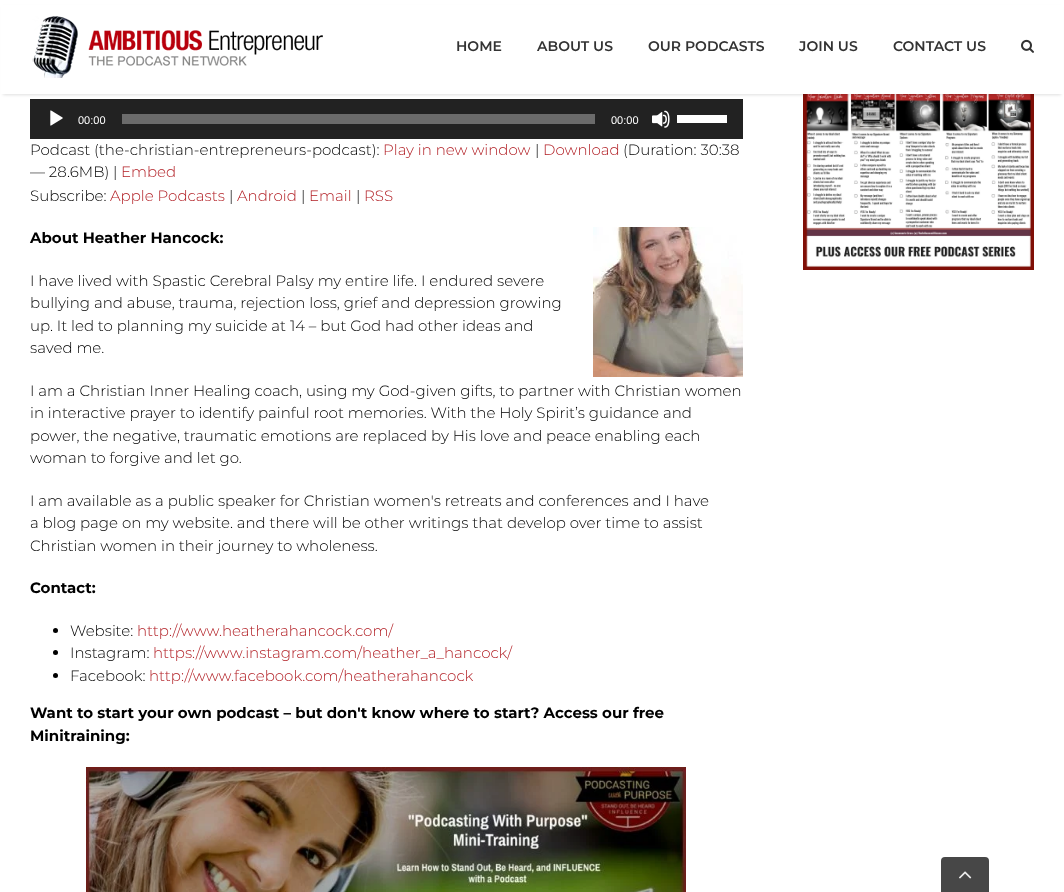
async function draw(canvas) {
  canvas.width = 1064
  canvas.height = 892
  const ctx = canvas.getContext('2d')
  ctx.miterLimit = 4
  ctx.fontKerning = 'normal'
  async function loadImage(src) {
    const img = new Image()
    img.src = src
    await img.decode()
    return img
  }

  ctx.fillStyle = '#fff'
  ctx.fillRect(0, 0, 1064, 892)
  ctx.fillStyle = '#222'
  ctx.fillRect(30, 99, 713, 40)
  ctx.drawImage(await loadImage('image6.png'), 803, 94, 231, 176)
  ctx.fillStyle = '#0000001f'
  ctx.filter = 'blur(1.5px)'
  ctx.beginPath()
  ctx.rect(3, 7, 1058, 88)
  ctx.fill()
  ctx.filter = 'none'
  ctx.fillStyle = '#fff'
  ctx.fillRect(1, 5, 1062, 89)
  ctx.drawImage(await loadImage('image0.png'), 32, 16, 291, 62)
  ctx.font = '100 14px "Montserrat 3"'
  ctx.fillStyle = '#333'
  ctx.fillText('HOME', 456, 51)
  ctx.fillText('ABOUT US', 537, 51)
  ctx.fillText('OUR PODCASTS', 648, 51)
  ctx.fillText('JOIN US', 799, 51)
  ctx.fillText('CONTACT US', 893, 51)
  ctx.drawImage(await loadImage('image1.png'), 1021, 39, 13, 14)
  ctx.drawImage(await loadImage('image2.png'), 50, 110, 13, 16)
  ctx.font = '11px Liberation Sans'
  ctx.fillStyle = '#fff'
  ctx.fillText('00:00', 78, 124)
  ctx.fillStyle = '#6b6b6b'
  ctx.fillRect(122, 114, 473, 10)
  ctx.fillStyle = '#fff'
  ctx.fillText('00:00', 611, 124)
  ctx.drawImage(await loadImage('image3.png'), 652, 110, 18, 18)
  ctx.fillRect(677, 115, 50, 8)
  ctx.font = '100 15px Montserrat'
  ctx.fillStyle = '#000'
  ctx.fillText('Podcast (the-christian-entrepreneurs-podcast):', 30, 155)
  ctx.fillStyle = '#b22026'
  ctx.fillText('Play in new window', 383, 155)
  ctx.fillStyle = '#000'
  ctx.fillText('|', 535, 155)
  ctx.fillStyle = '#b22026'
  ctx.fillText('Download', 543, 155)
  ctx.fillStyle = '#000'
  ctx.fillText('(Duration: 30:38', 623, 155)
  ctx.fillText('— 28.6MB) |', 30, 177)
  ctx.fillStyle = '#b22026'
  ctx.fillText('Embed', 121, 177)
  ctx.fillStyle = '#000'
  ctx.fillText('Subscribe:', 30, 201)
  ctx.fillStyle = '#b22026'
  ctx.fillText('Apple Podcasts', 110, 201)
  ctx.fillStyle = '#000'
  ctx.fillText('|', 229, 201)
  ctx.fillStyle = '#b22026'
  ctx.fillText('Android', 237, 201)
  ctx.fillStyle = '#000'
  ctx.fillText('|', 301, 201)
  ctx.fillStyle = '#b22026'
  ctx.fillText('Email', 309, 201)
  ctx.fillStyle = '#000'
  ctx.fillText('|', 356, 201)
  ctx.fillStyle = '#b22026'
  ctx.fillText('RSS', 364, 201)
  ctx.font = '100 15px "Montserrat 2"'
  ctx.fillStyle = '#000'
  ctx.fillText('About Heather Hancock:', 30, 243)
  ctx.drawImage(await loadImage('image4.png'), 593, 227, 150, 150)
  ctx.font = '100 15px Montserrat'
  ctx.fillText('I have lived with Spastic Cerebral Palsy my entire life. I endured severe', 30, 286)
  ctx.fillText('bullying and abuse, trauma, rejection loss, grief and depression growing', 30, 308)
  ctx.fillText('up. It led to planning my suicide at 14 – but God had other ideas and', 30, 331)
  ctx.fillText('saved me.', 30, 353)
  ctx.fillText('I am a Christian Inner Healing coach, using my God-given gifts, to partner with Christian women', 30, 396)
  ctx.fillText('in interactive prayer to identify painful root memories. With the Holy Spirit’s guidance and', 30, 418)
  ctx.fillText('power, the negative, traumatic emotions are replaced by His love and peace enabling each', 30, 441)
  ctx.fillText('woman to forgive and let go.', 30, 463)
  ctx.fillText('I am available as a public speaker for Christian women\'s retreats and conferences and I have', 30, 506)
  ctx.fillText('a blog page on my website. and there will be other writings that develop over time to assist', 30, 528)
  ctx.fillText('Christian women in their journey to wholeness.', 30, 551)
  ctx.font = '100 15px "Montserrat 2"'
  ctx.fillText('Contact:', 30, 593)
  ctx.beginPath()
  ctx.arc(55.5, 630.5, 2.5, 0, 2 * Math.PI)
  ctx.fill()
  ctx.font = '100 15px Montserrat'
  ctx.fillText('Website:', 70, 636)
  ctx.fillStyle = '#b22026'
  ctx.fillText('http://www.heatherahancock.com/', 137, 636)
  ctx.fillStyle = '#000'
  ctx.beginPath()
  ctx.arc(55.5, 652.5, 2.5, 0, 2 * Math.PI)
  ctx.fill()
  ctx.fillText('Instagram:', 70, 658)
  ctx.fillStyle = '#b22026'
  ctx.fillText('https://www.instagram.com/heather_a_hancock/', 153, 658)
  ctx.fillStyle = '#000'
  ctx.beginPath()
  ctx.arc(55.5, 675.5, 2.5, 0, 2 * Math.PI)
  ctx.fill()
  ctx.fillText('Facebook:', 70, 681)
  ctx.fillStyle = '#b22026'
  ctx.fillText('http://www.facebook.com/heatherahancock', 149, 681)
  ctx.font = '100 15px "Montserrat 2"'
  ctx.fillStyle = '#000'
  ctx.fillText('Want to start your own podcast – but don\'t know where to start? Access our free', 30, 718)
  ctx.fillText('Minitraining:', 30, 741)
  ctx.drawImage(await loadImage('image5.png'), 86, 767, 600, 125)
  ctx.fillStyle = '#474747'
  ctx.beginPath()
  ctx.roundRect(941, 857, 48, 35, [4, 4, 0, 0])
  ctx.fill()
  ctx.drawImage(await loadImage('image7.png'), 959, 871, 13, 8)
}

draw(document.querySelector('canvas'))
